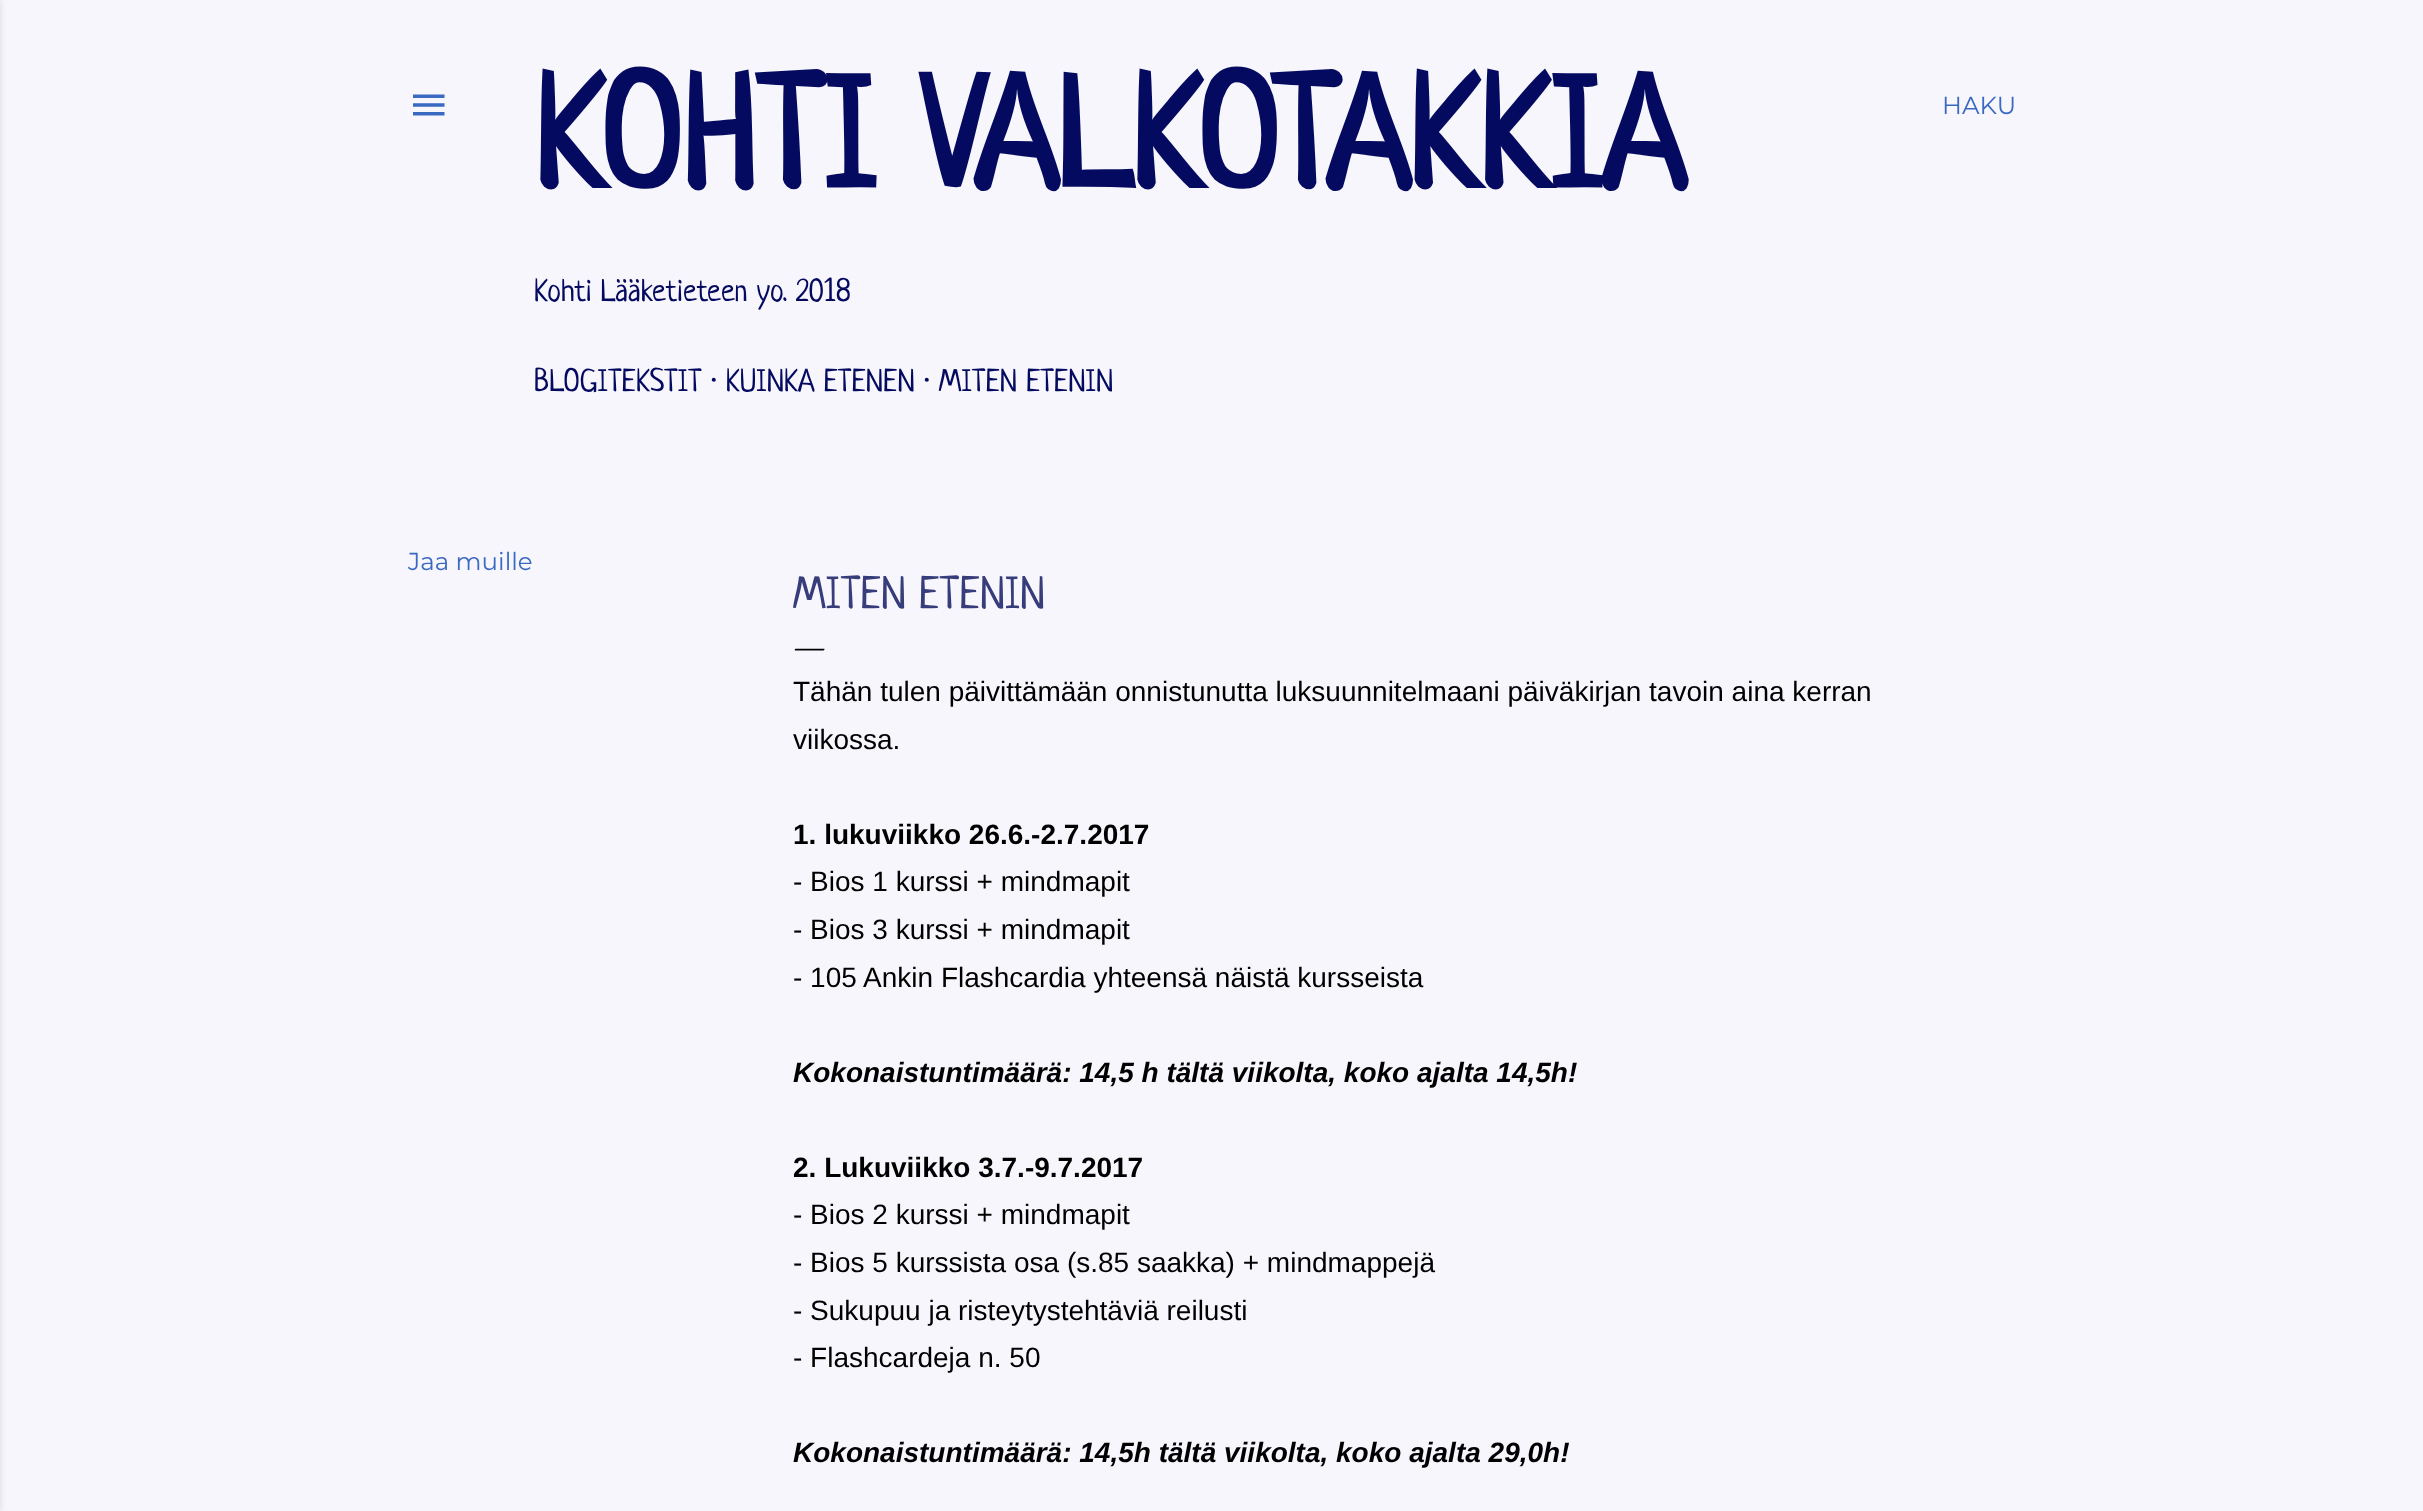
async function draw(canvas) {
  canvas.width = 2423
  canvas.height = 1511
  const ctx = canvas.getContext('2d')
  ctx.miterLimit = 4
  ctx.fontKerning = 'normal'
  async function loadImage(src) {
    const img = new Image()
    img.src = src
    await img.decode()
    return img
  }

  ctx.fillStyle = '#f8f6fd'
  ctx.fillRect(0, 0, 2423, 1511)
  ctx.fillStyle = '#5858581a'
  ctx.filter = 'blur(2.5px)'
  ctx.beginPath()
  ctx.rect(-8, 0, 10, 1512)
  ctx.fill()
  ctx.filter = 'none'
  ctx.drawImage(await loadImage('image0.png'), 413, 94, 32, 22)
  ctx.font = 'bold 157.5px Neucha'
  ctx.fillStyle = '#040a5f'
  ctx.fillText('KOHTI VALKOTAKKIA', 534, 187)
  ctx.font = '31.5px Neucha'
  ctx.fillText('Kohti Lääketieteen yo. 2018', 534, 301)
  ctx.fillText('BLOGITEKSTIT · KUINKA ETENEN · MITEN ETENIN', 534, 391)
  ctx.font = '24.5px Montserrat'
  ctx.fillStyle = '#3a69c2'
  ctx.fillText('HAKU', 1942, 114)
  ctx.fillText('Jaa muille', 408, 570)
  ctx.font = '45.5px Neucha'
  ctx.fillStyle = '#373c7a'
  ctx.fillText('MITEN ETENIN', 793, 608)
  ctx.font = '35px EB Garamond'
  ctx.fillStyle = '#000'
  ctx.fillText('—', 793, 657)
  ctx.font = '28px Liberation Sans'
  ctx.fillText('Tähän tulen päivittämään onnistunutta luksuunnitelmaani päiväkirjan tavoin aina kerran', 793, 701)
  ctx.fillText('viikossa.', 793, 749)
  ctx.font = 'bold 28px Liberation Sans'
  ctx.fillText('1. lukuviikko 26.6.-2.7.2017', 793, 844)
  ctx.font = '28px Liberation Sans'
  ctx.fillText('- Bios 1 kurssi + mindmapit', 793, 891)
  ctx.fillText('- Bios 3 kurssi + mindmapit', 793, 939)
  ctx.fillText('- 105 Ankin Flashcardia yhteensä näistä kursseista', 793, 987)
  ctx.font = 'italic bold 28px Liberation Sans'
  ctx.fillText('Kokonaistuntimäärä: 14,5 h tältä viikolta, koko ajalta 14,5h!', 793, 1082)
  ctx.font = 'bold 28px Liberation Sans'
  ctx.fillText('2. Lukuviikko 3.7.-9.7.2017', 793, 1177)
  ctx.font = '28px Liberation Sans'
  ctx.fillText('- Bios 2 kurssi + mindmapit', 793, 1224)
  ctx.fillText('- Bios 5 kurssista osa (s.85 saakka) + mindmappejä', 793, 1272)
  ctx.fillText('- Sukupuu ja risteytystehtäviä reilusti', 793, 1320)
  ctx.fillText('- Flashcardeja n. 50', 793, 1367)
  ctx.font = 'italic bold 28px Liberation Sans'
  ctx.fillText('Kokonaistuntimäärä: 14,5h tältä viikolta, koko ajalta 29,0h!', 793, 1462)
}

draw(document.querySelector('canvas'))
